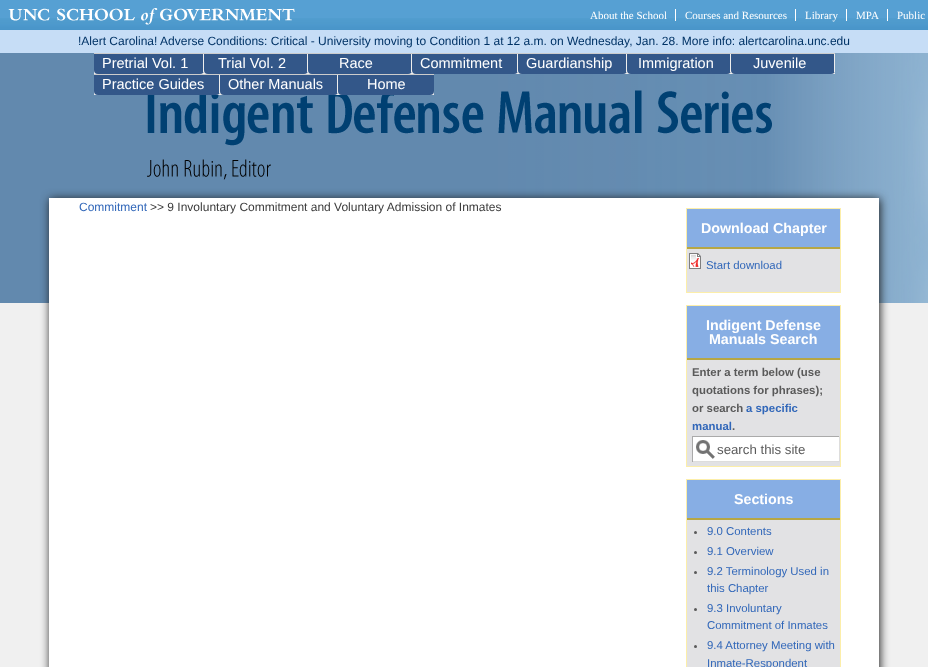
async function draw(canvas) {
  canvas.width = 928
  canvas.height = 667
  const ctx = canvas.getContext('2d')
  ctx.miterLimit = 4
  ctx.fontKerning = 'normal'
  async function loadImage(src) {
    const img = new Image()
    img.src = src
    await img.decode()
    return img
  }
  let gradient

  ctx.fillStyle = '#f0f0f0'
  ctx.fillRect(0, 0, 928, 667)
  ctx.fillStyle = '#56a0d3'
  ctx.fillRect(0, 0, 928, 18)
  ctx.drawImage(await loadImage('image0.png'), 0, 18, 928, 12)
  ctx.drawImage(await loadImage('image1.png'), 8, 8, 287, 17)
  ctx.font = '11px Liberation Serif'
  ctx.fillStyle = '#fff'
  ctx.fillText('About the School', 590, 19)
  ctx.fillRect(675, 9, 1, 12)
  ctx.fillText('Courses and Resources', 685, 19)
  ctx.fillRect(795, 9, 1, 12)
  ctx.fillText('Library', 805, 19)
  ctx.fillRect(846, 9, 1, 12)
  ctx.fillText('MPA', 856, 19)
  ctx.fillRect(887, 9, 1, 12)
  ctx.fillText('Public', 897, 19)
  ctx.fillStyle = '#c6ddf6'
  ctx.fillRect(0, 30, 928, 23)
  ctx.font = '12px Liberation Sans'
  ctx.fillStyle = '#036'
  ctx.fillText('!Alert Carolina! Adverse Conditions: Critical - University moving to Condition 1 at 12 a.m. on Wednesday, Jan. 28. More info: alertcarolina.unc.edu', 78, 45)
  gradient = ctx.createLinearGradient(0, 53, 928, 53)
  gradient.addColorStop(0, '#7ca8cb')
  gradient.addColorStop(1, '#77acd4')
  ctx.fillStyle = gradient
  ctx.fillRect(508, 53, 420, 250)
  ctx.drawImage(await loadImage('image2.png'), 0, 53, 928, 250)
  ctx.fillStyle = '#eee'
  ctx.fillRect(94, 70, 741, 4)
  ctx.fillStyle = '#ccc'
  ctx.fillRect(94, 53, 741, 1)
  ctx.fillStyle = '#335789'
  ctx.beginPath()
  ctx.roundRect(94, 54, 110, 20, [0, 0, 4, 4])
  ctx.fill()
  ctx.fillStyle = '#eee'
  ctx.fillRect(203, 54, 1, 18)
  ctx.font = '14.5px Liberation Sans'
  ctx.fillStyle = '#fff'
  ctx.fillText('Pretrial Vol. 1', 102, 68)
  ctx.fillStyle = '#335789'
  ctx.beginPath()
  ctx.roundRect(204, 54, 104, 20, [0, 0, 4, 4])
  ctx.fill()
  ctx.fillStyle = '#eee'
  ctx.fillRect(307, 54, 1, 18)
  ctx.fillStyle = '#fff'
  ctx.fillText('Trial Vol. 2', 218, 68)
  ctx.fillStyle = '#335789'
  ctx.beginPath()
  ctx.roundRect(308, 54, 104, 20, [0, 0, 4, 4])
  ctx.fill()
  ctx.fillStyle = '#eee'
  ctx.fillRect(411, 54, 1, 18)
  ctx.fillStyle = '#fff'
  ctx.fillText('Race', 339, 68)
  ctx.fillStyle = '#335789'
  ctx.beginPath()
  ctx.roundRect(412, 54, 106, 20, [0, 0, 4, 4])
  ctx.fill()
  ctx.fillStyle = '#eee'
  ctx.fillRect(517, 54, 1, 18)
  ctx.fillStyle = '#fff'
  ctx.fillText('Commitment', 420, 68)
  ctx.fillStyle = '#335789'
  ctx.beginPath()
  ctx.roundRect(518, 54, 109, 20, [0, 0, 4, 4])
  ctx.fill()
  ctx.fillStyle = '#eee'
  ctx.fillRect(626, 54, 1, 18)
  ctx.fillStyle = '#fff'
  ctx.fillText('Guardianship', 526, 68)
  ctx.fillStyle = '#335789'
  ctx.beginPath()
  ctx.roundRect(627, 54, 104, 20, [0, 0, 4, 4])
  ctx.fill()
  ctx.fillStyle = '#eee'
  ctx.fillRect(730, 54, 1, 18)
  ctx.fillStyle = '#fff'
  ctx.fillText('Immigration', 638, 68)
  ctx.fillStyle = '#335789'
  ctx.beginPath()
  ctx.roundRect(731, 54, 104, 20, [0, 0, 4, 4])
  ctx.fill()
  ctx.fillStyle = '#eee'
  ctx.fillRect(834, 54, 1, 18)
  ctx.fillStyle = '#fff'
  ctx.fillText('Juvenile', 753, 68)
  ctx.fillStyle = '#eee'
  ctx.fillRect(94, 91, 340, 4)
  ctx.fillStyle = '#ccc'
  ctx.fillRect(94, 74, 340, 1)
  ctx.fillStyle = '#335789'
  ctx.beginPath()
  ctx.roundRect(94, 75, 126, 20, [0, 0, 4, 4])
  ctx.fill()
  ctx.fillStyle = '#eee'
  ctx.fillRect(219, 75, 1, 18)
  ctx.fillStyle = '#fff'
  ctx.fillText('Practice Guides', 102, 89)
  ctx.fillStyle = '#335789'
  ctx.beginPath()
  ctx.roundRect(220, 75, 118, 20, [0, 0, 4, 4])
  ctx.fill()
  ctx.fillStyle = '#eee'
  ctx.fillRect(337, 75, 1, 18)
  ctx.fillStyle = '#fff'
  ctx.fillText('Other Manuals', 228, 89)
  ctx.fillStyle = '#335789'
  ctx.beginPath()
  ctx.roundRect(338, 75, 96, 20, [0, 0, 4, 4])
  ctx.fill()
  ctx.fillStyle = '#fff'
  ctx.fillText('Home', 367, 89)
  ctx.fillStyle = '#1c1c1c'
  ctx.filter = 'blur(5px)'
  ctx.beginPath()
  ctx.rect(50, 199, 830, 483)
  ctx.fill()
  ctx.filter = 'none'
  ctx.fillStyle = '#fff'
  ctx.fillRect(49, 198, 830, 469)
  ctx.font = '12px Liberation Sans'
  ctx.fillStyle = '#3167b9'
  ctx.fillText('Commitment', 79, 211)
  ctx.fillStyle = '#3b3b3b'
  ctx.fillText('>> 9 Involuntary Commitment and Voluntary Admission of Inmates', 150, 211)
  ctx.fillStyle = '#e2e2e4'
  ctx.fillRect(687, 249, 153, 43)
  ctx.strokeStyle = '#fceea9'
  ctx.strokeRect(686.5, 208.5, 154, 84)
  ctx.fillStyle = '#b7a744'
  ctx.fillRect(687, 247, 153, 2)
  ctx.fillStyle = '#87aee4'
  ctx.fillRect(687, 209, 153, 38)
  ctx.font = 'bold 14.25px Liberation Sans'
  ctx.fillStyle = '#fff'
  ctx.fillText('Download Chapter', 701, 233)
  ctx.drawImage(await loadImage('image3.png'), 689, 253, 12, 16)
  ctx.font = '11.4px Liberation Sans'
  ctx.fillStyle = '#3167b9'
  ctx.fillText('Start download', 706, 269)
  ctx.fillStyle = '#e2e2e4'
  ctx.fillRect(687, 360, 153, 106)
  ctx.strokeRect(686.5, 305.5, 154, 161)
  ctx.fillStyle = '#b7a744'
  ctx.fillRect(687, 358, 153, 2)
  ctx.fillStyle = '#87aee4'
  ctx.fillRect(687, 306, 153, 52)
  ctx.font = 'bold 14.25px Liberation Sans'
  ctx.fillStyle = '#fff'
  ctx.fillText('Indigent Defense', 706, 330)
  ctx.fillText('Manuals Search', 709, 344)
  ctx.font = 'bold 11.4px Liberation Sans'
  ctx.fillStyle = '#5a5a5a'
  ctx.fillText('Enter a term below (use', 692, 376)
  ctx.fillText('quotations for phrases);', 692, 394)
  ctx.fillText('or search', 692, 412)
  ctx.fillStyle = '#3167b9'
  ctx.fillText('a specific', 746, 412)
  ctx.fillText('manual', 692, 430)
  ctx.fillStyle = '#5a5a5a'
  ctx.fillText('.', 732, 430)
  ctx.fillStyle = '#fff'
  ctx.fillRect(693, 437, 146, 24)
  ctx.drawImage(await loadImage('image4.png'), 696, 440, 19, 19)
  ctx.fillStyle = '#aaa'
  ctx.fillRect(692, 436, 148, 1)
  ctx.fillStyle = '#ddd'
  ctx.fillRect(839, 436, 1, 26)
  ctx.fillRect(692, 461, 148, 1)
  ctx.fillStyle = '#aaa'
  ctx.fillRect(692, 436, 1, 26)
  ctx.font = '13.25px Liberation Sans'
  ctx.fillStyle = '#5a5a5a'
  ctx.fillText('search this site', 717, 454)
  ctx.fillStyle = '#e2e2e4'
  ctx.fillRect(687, 520, 153, 147)
  ctx.strokeRect(686.5, 479.5, 154, 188)
  ctx.fillStyle = '#b7a744'
  ctx.fillRect(687, 518, 153, 2)
  ctx.fillStyle = '#87aee4'
  ctx.fillRect(687, 480, 153, 38)
  ctx.font = 'bold 14.25px Liberation Sans'
  ctx.fillStyle = '#fff'
  ctx.fillText('Sections', 734, 504)
  ctx.fillStyle = '#5a5a5a'
  ctx.beginPath()
  ctx.arc(695.5, 532.5, 1.5, 0, 2 * Math.PI)
  ctx.fill()
  ctx.font = '11.4px Liberation Sans'
  ctx.fillStyle = '#3167b9'
  ctx.fillText('9.0 Contents', 707, 535)
  ctx.fillStyle = '#5a5a5a'
  ctx.beginPath()
  ctx.arc(695.5, 552.5, 1.5, 0, 2 * Math.PI)
  ctx.fill()
  ctx.fillStyle = '#3167b9'
  ctx.fillText('9.1 Overview', 707, 555)
  ctx.fillStyle = '#5a5a5a'
  ctx.beginPath()
  ctx.arc(695.5, 572.5, 1.5, 0, 2 * Math.PI)
  ctx.fill()
  ctx.fillStyle = '#3167b9'
  ctx.fillText('9.2 Terminology Used in', 707, 575)
  ctx.fillText('this Chapter', 707, 592)
  ctx.fillStyle = '#5a5a5a'
  ctx.beginPath()
  ctx.arc(695.5, 609.5, 1.5, 0, 2 * Math.PI)
  ctx.fill()
  ctx.fillStyle = '#3167b9'
  ctx.fillText('9.3 Involuntary', 707, 612)
  ctx.fillText('Commitment of Inmates', 707, 629)
  ctx.fillStyle = '#5a5a5a'
  ctx.beginPath()
  ctx.arc(695.5, 646.5, 1.5, 0, 2 * Math.PI)
  ctx.fill()
  ctx.fillStyle = '#3167b9'
  ctx.fillText('9.4 Attorney Meeting with', 707, 649)
  ctx.fillText('Inmate-Respondent', 707, 667)
}

draw(document.querySelector('canvas'))
